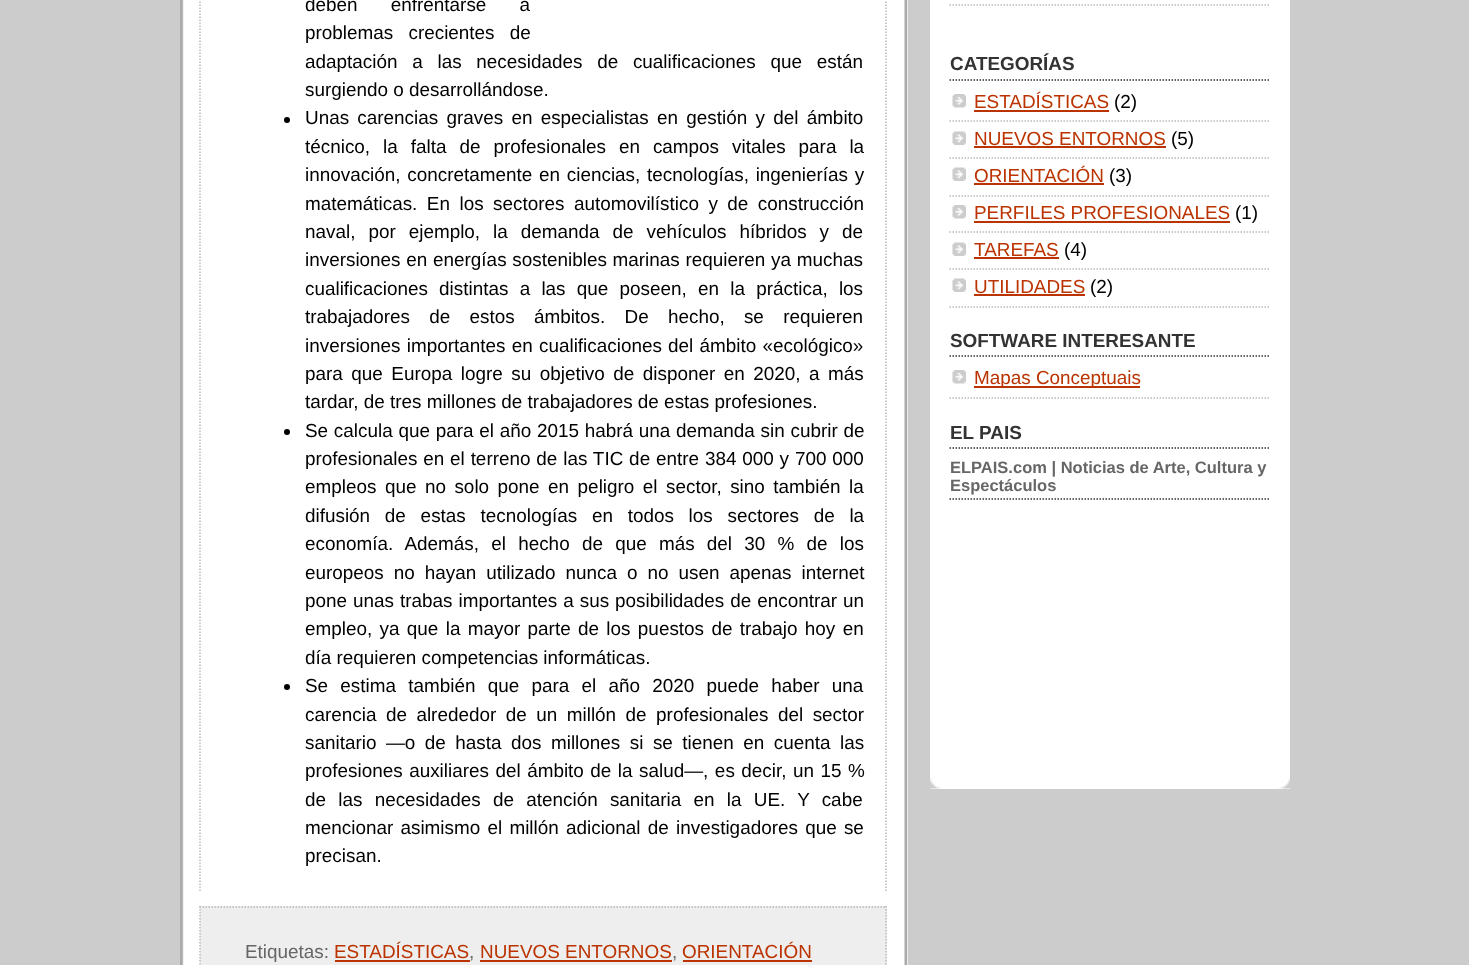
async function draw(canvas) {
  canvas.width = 1469
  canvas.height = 965
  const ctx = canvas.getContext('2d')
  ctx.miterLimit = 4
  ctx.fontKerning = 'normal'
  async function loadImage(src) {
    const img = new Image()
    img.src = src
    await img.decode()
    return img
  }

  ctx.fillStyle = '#ccc'
  ctx.fillRect(0, 0, 1469, 965)
  ctx.fillStyle = '#fff'
  ctx.fillRect(182, 0, 726, 965)
  ctx.drawImage(await loadImage('image0.png'), 180, 0, 728, 965)
  ctx.beginPath()
  ctx.moveTo(886, -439.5)
  ctx.lineTo(886, 891)
  ctx.strokeStyle = '#bbb'
  ctx.lineWidth = 1.5
  ctx.setLineDash([1.5, 1.5])
  ctx.stroke()
  ctx.beginPath()
  ctx.moveTo(200, -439.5)
  ctx.lineTo(200, 891)
  ctx.stroke()
  ctx.wordSpacing = '28px'
  ctx.font = '18.9px Liberation Sans'
  ctx.fillStyle = '#000'
  ctx.fillText('deben enfrentarse a', 305, 11)
  ctx.wordSpacing = '10px'
  ctx.fillText('problemas crecientes de', 305, 39)
  ctx.wordSpacing = '9.5px'
  ctx.fillText('adaptación a las necesidades de cualificaciones que están', 305, 68)
  ctx.wordSpacing = '0px'
  ctx.fillText('surgiendo o desarrollándose.', 305, 96)
  ctx.beginPath()
  ctx.arc(287, 120, 3, 0, 2 * Math.PI)
  ctx.fill()
  ctx.wordSpacing = '3px'
  ctx.fillText('Unas carencias graves en especialistas en gestión y del ámbito', 305, 124)
  ctx.wordSpacing = '7.75px'
  ctx.fillText('técnico, la falta de profesionales en campos vitales para la', 305, 153)
  ctx.wordSpacing = '1.5px'
  ctx.fillText('innovación, concretamente en ciencias, tecnologías, ingenierías y', 305, 181)
  ctx.wordSpacing = '4.25px'
  ctx.fillText('matemáticas. En los sectores automovilístico y de construcción', 305, 210)
  ctx.wordSpacing = '7.75px'
  ctx.fillText('naval, por ejemplo, la demanda de vehículos híbridos y de', 305, 238)
  ctx.wordSpacing = '0.5px'
  ctx.fillText('inversiones en energías sostenibles marinas requieren ya muchas', 305, 266)
  ctx.wordSpacing = '6px'
  ctx.fillText('cualificaciones distintas a las que poseen, en la práctica, los', 305, 295)
  ctx.wordSpacing = '14px'
  ctx.fillText('trabajadores de estos ámbitos. De hecho, se requieren', 305, 323)
  ctx.wordSpacing = '1px'
  ctx.fillText('inversiones importantes en cualificaciones del ámbito «ecológico»', 305, 352)
  ctx.wordSpacing = '3.25px'
  ctx.fillText('para que Europa logre su objetivo de disponer en 2020, a más', 305, 380)
  ctx.wordSpacing = '0px'
  ctx.fillText('tardar, de tres millones de trabajadores de estas profesiones.', 305, 408)
  ctx.beginPath()
  ctx.arc(287, 432, 3, 0, 2 * Math.PI)
  ctx.fill()
  ctx.wordSpacing = '0.5px'
  ctx.fillText('Se calcula que para el año 2015 habrá una demanda sin cubrir de', 305, 437)
  ctx.wordSpacing = '0.6px'
  ctx.fillText('profesionales en el terreno de las TIC de entre 384 000 y 700 000', 305, 465)
  ctx.wordSpacing = '3.25px'
  ctx.fillText('empleos que no solo pone en peligro el sector, sino también la', 305, 493)
  ctx.wordSpacing = '9.5px'
  ctx.fillText('difusión de estas tecnologías en todos los sectores de la', 305, 522)
  ctx.wordSpacing = '7px'
  ctx.fillText('economía. Además, el hecho de que más del 30 % de los', 305, 550)
  ctx.wordSpacing = '4.75px'
  ctx.fillText('europeos no hayan utilizado nunca o no usen apenas internet', 305, 579)
  ctx.wordSpacing = '0.75px'
  ctx.fillText('pone unas trabas importantes a sus posibilidades de encontrar un', 305, 607)
  ctx.wordSpacing = '2.1px'
  ctx.fillText('empleo, ya que la mayor parte de los puestos de trabajo hoy en', 305, 635)
  ctx.wordSpacing = '0px'
  ctx.fillText('día requieren competencias informáticas.', 305, 664)
  ctx.beginPath()
  ctx.arc(287, 687, 3, 0, 2 * Math.PI)
  ctx.fill()
  ctx.wordSpacing = '7px'
  ctx.fillText('Se estima también que para el año 2020 puede haber una', 305, 692)
  ctx.wordSpacing = '4.25px'
  ctx.fillText('carencia de alrededor de un millón de profesionales del sector', 305, 721)
  ctx.fillText('sanitario —o de hasta dos millones si se tienen en cuenta las', 305, 749)
  ctx.wordSpacing = '1.25px'
  ctx.fillText('profesiones auxiliares del ámbito de la salud—, es decir, un 15 %', 305, 777)
  ctx.wordSpacing = '7px'
  ctx.fillText('de las necesidades de atención sanitaria en la UE. Y cabe', 305, 806)
  ctx.wordSpacing = '2px'
  ctx.fillText('mencionar asimismo el millón adicional de investigadores que se', 305, 834)
  ctx.wordSpacing = '0px'
  ctx.fillText('precisan.', 305, 862)
  ctx.fillStyle = '#eee'
  ctx.fillRect(200, 906, 687, 59)
  ctx.beginPath()
  ctx.moveTo(199.5, 907)
  ctx.lineTo(886.5, 907)
  ctx.stroke()
  ctx.beginPath()
  ctx.moveTo(886, 906)
  ctx.lineTo(886, 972)
  ctx.stroke()
  ctx.beginPath()
  ctx.moveTo(200, 906)
  ctx.lineTo(200, 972)
  ctx.stroke()
  ctx.fillStyle = '#666'
  ctx.fillText('Etiquetas:', 245, 958)
  ctx.fillStyle = '#b30'
  ctx.fillText('ESTADÍSTICAS', 334, 958)
  ctx.fillStyle = '#666'
  ctx.fillText(',', 469, 958)
  ctx.fillStyle = '#b30'
  ctx.fillRect(335, 960, 135, 2)
  ctx.fillText('NUEVOS ENTORNOS', 480, 958)
  ctx.fillStyle = '#666'
  ctx.fillText(',', 672, 958)
  ctx.fillStyle = '#b30'
  ctx.fillRect(480, 960, 192, 2)
  ctx.fillRect(683, 960, 129, 2)
  ctx.fillText('ORIENTACIÓN', 682, 958)
  ctx.fillStyle = '#fff'
  ctx.fillRect(930, 0, 360, 789)
  ctx.drawImage(await loadImage('image1.png'), 930, 778, 360, 11)
  ctx.beginPath()
  ctx.moveTo(949.5, 5)
  ctx.lineTo(1270.5, 5)
  ctx.stroke()
  ctx.beginPath()
  ctx.moveTo(949.5, 80)
  ctx.lineTo(1270.5, 80)
  ctx.strokeStyle = '#333'
  ctx.stroke()
  ctx.font = 'bold 18.9px Liberation Sans'
  ctx.fillStyle = '#333'
  ctx.fillText('CATEGORÍAS', 950, 70)
  ctx.drawImage(await loadImage('image2.png'), 952, 94, 14, 14)
  ctx.beginPath()
  ctx.moveTo(949.5, 121)
  ctx.lineTo(1270.5, 121)
  ctx.strokeStyle = '#bbb'
  ctx.stroke()
  ctx.font = '18.9px Liberation Sans'
  ctx.fillStyle = '#b30'
  ctx.fillText('ESTADÍSTICAS', 974, 108)
  ctx.fillRect(974, 110, 135, 2)
  ctx.fillStyle = '#000'
  ctx.fillText('(2)', 1114, 108)
  ctx.drawImage(await loadImage('image3.png'), 952, 131, 14, 14)
  ctx.beginPath()
  ctx.moveTo(949.5, 158)
  ctx.lineTo(1270.5, 158)
  ctx.stroke()
  ctx.fillStyle = '#b30'
  ctx.fillText('NUEVOS ENTORNOS', 974, 145)
  ctx.fillRect(974, 146, 192, 2)
  ctx.fillStyle = '#000'
  ctx.fillText('(5)', 1171, 145)
  ctx.drawImage(await loadImage('image3.png'), 952, 167, 14, 14)
  ctx.beginPath()
  ctx.moveTo(949.5, 196)
  ctx.lineTo(1270.5, 196)
  ctx.stroke()
  ctx.fillStyle = '#b30'
  ctx.fillText('ORIENTACIÓN', 974, 182)
  ctx.fillRect(974, 183, 130, 2)
  ctx.fillStyle = '#000'
  ctx.fillText('(3)', 1109, 182)
  ctx.drawImage(await loadImage('image2.png'), 952, 205, 14, 14)
  ctx.beginPath()
  ctx.moveTo(949.5, 232)
  ctx.lineTo(1270.5, 232)
  ctx.stroke()
  ctx.fillStyle = '#b30'
  ctx.fillText('PERFILES PROFESIONALES', 974, 219)
  ctx.fillRect(974, 221, 256, 2)
  ctx.fillStyle = '#000'
  ctx.fillText('(1)', 1235, 219)
  ctx.drawImage(await loadImage('image3.png'), 952, 242, 14, 14)
  ctx.beginPath()
  ctx.moveTo(949.5, 269)
  ctx.lineTo(1270.5, 269)
  ctx.stroke()
  ctx.fillStyle = '#b30'
  ctx.fillText('TAREFAS', 974, 256)
  ctx.fillRect(974, 257, 85, 2)
  ctx.fillStyle = '#000'
  ctx.fillText('(4)', 1064, 256)
  ctx.drawImage(await loadImage('image3.png'), 952, 278, 14, 14)
  ctx.beginPath()
  ctx.moveTo(949.5, 307)
  ctx.lineTo(1270.5, 307)
  ctx.stroke()
  ctx.fillStyle = '#b30'
  ctx.fillText('UTILIDADES', 974, 293)
  ctx.fillRect(974, 294, 111, 2)
  ctx.fillStyle = '#000'
  ctx.fillText('(2)', 1090, 293)
  ctx.beginPath()
  ctx.moveTo(949.5, 356)
  ctx.lineTo(1270.5, 356)
  ctx.strokeStyle = '#333'
  ctx.stroke()
  ctx.font = 'bold 18.9px Liberation Sans'
  ctx.fillStyle = '#333'
  ctx.fillText('SOFTWARE INTERESANTE', 950, 347)
  ctx.drawImage(await loadImage('image2.png'), 952, 370, 14, 14)
  ctx.beginPath()
  ctx.moveTo(949.5, 398)
  ctx.lineTo(1270.5, 398)
  ctx.strokeStyle = '#bbb'
  ctx.stroke()
  ctx.fillStyle = '#b30'
  ctx.fillRect(974, 386, 166, 2)
  ctx.font = '18.9px Liberation Sans'
  ctx.fillText('Mapas Conceptuais', 974, 384)
  ctx.beginPath()
  ctx.moveTo(949.5, 448)
  ctx.lineTo(1270.5, 448)
  ctx.strokeStyle = '#333'
  ctx.stroke()
  ctx.font = 'bold 18.9px Liberation Sans'
  ctx.fillStyle = '#333'
  ctx.fillText('EL PAIS', 950, 439)
  ctx.beginPath()
  ctx.moveTo(949.5, 499)
  ctx.lineTo(1270.5, 499)
  ctx.stroke()
  ctx.font = 'bold 16.5px Liberation Sans'
  ctx.fillStyle = '#666'
  ctx.fillText('ELPAIS.com | Noticias de Arte, Cultura y', 950, 473)
  ctx.fillText('Espectáculos', 950, 491)
}

draw(document.querySelector('canvas'))
